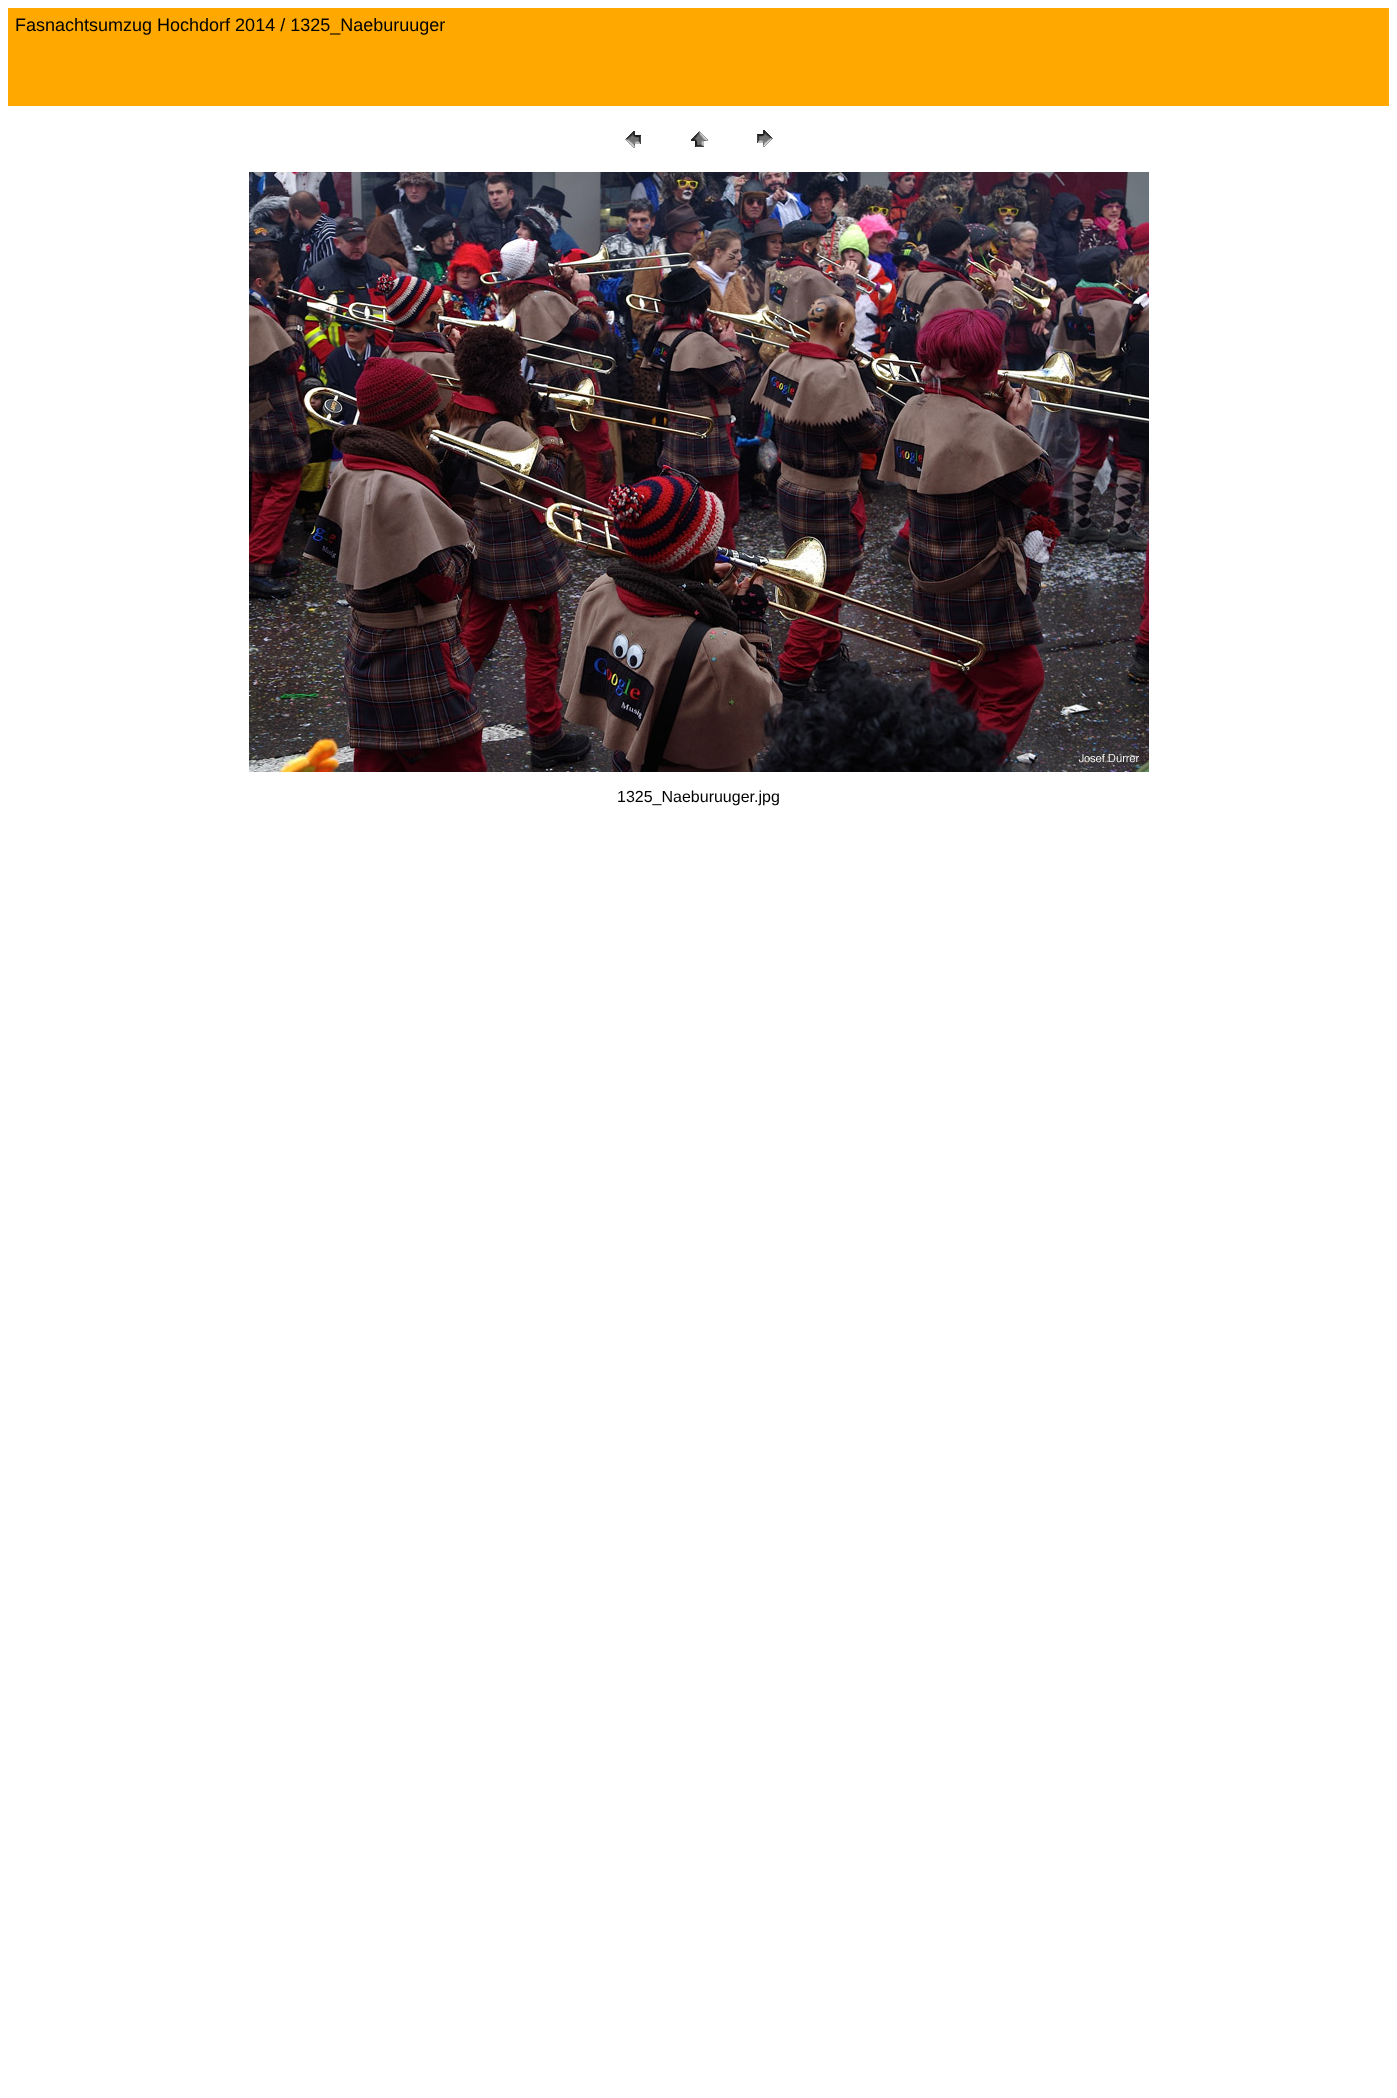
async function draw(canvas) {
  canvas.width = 1397
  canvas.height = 2098
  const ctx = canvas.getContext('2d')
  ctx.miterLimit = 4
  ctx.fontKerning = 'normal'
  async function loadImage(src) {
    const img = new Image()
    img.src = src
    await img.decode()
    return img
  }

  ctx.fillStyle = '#fff'
  ctx.fillRect(0, 0, 1397, 2098)
  ctx.fillStyle = '#ffa800'
  ctx.fillRect(8, 8, 1381, 98)
  ctx.font = '18px Liberation Sans'
  ctx.fillStyle = '#000'
  ctx.fillText('Fasnachtsumzug Hochdorf 2014 / 1325_Naeburuuger', 15, 31)
  ctx.drawImage(await loadImage('image0.png'), 625, 131, 16, 17)
  ctx.drawImage(await loadImage('image1.png'), 691, 131, 17, 16)
  ctx.drawImage(await loadImage('image2.png'), 757, 130, 16, 17)
  ctx.drawImage(await loadImage('image3.png'), 249, 172, 900, 600)
  ctx.font = '16px Liberation Sans'
  ctx.fillText('1325_Naeburuuger.jpg', 617, 802)
}

draw(document.querySelector('canvas'))
